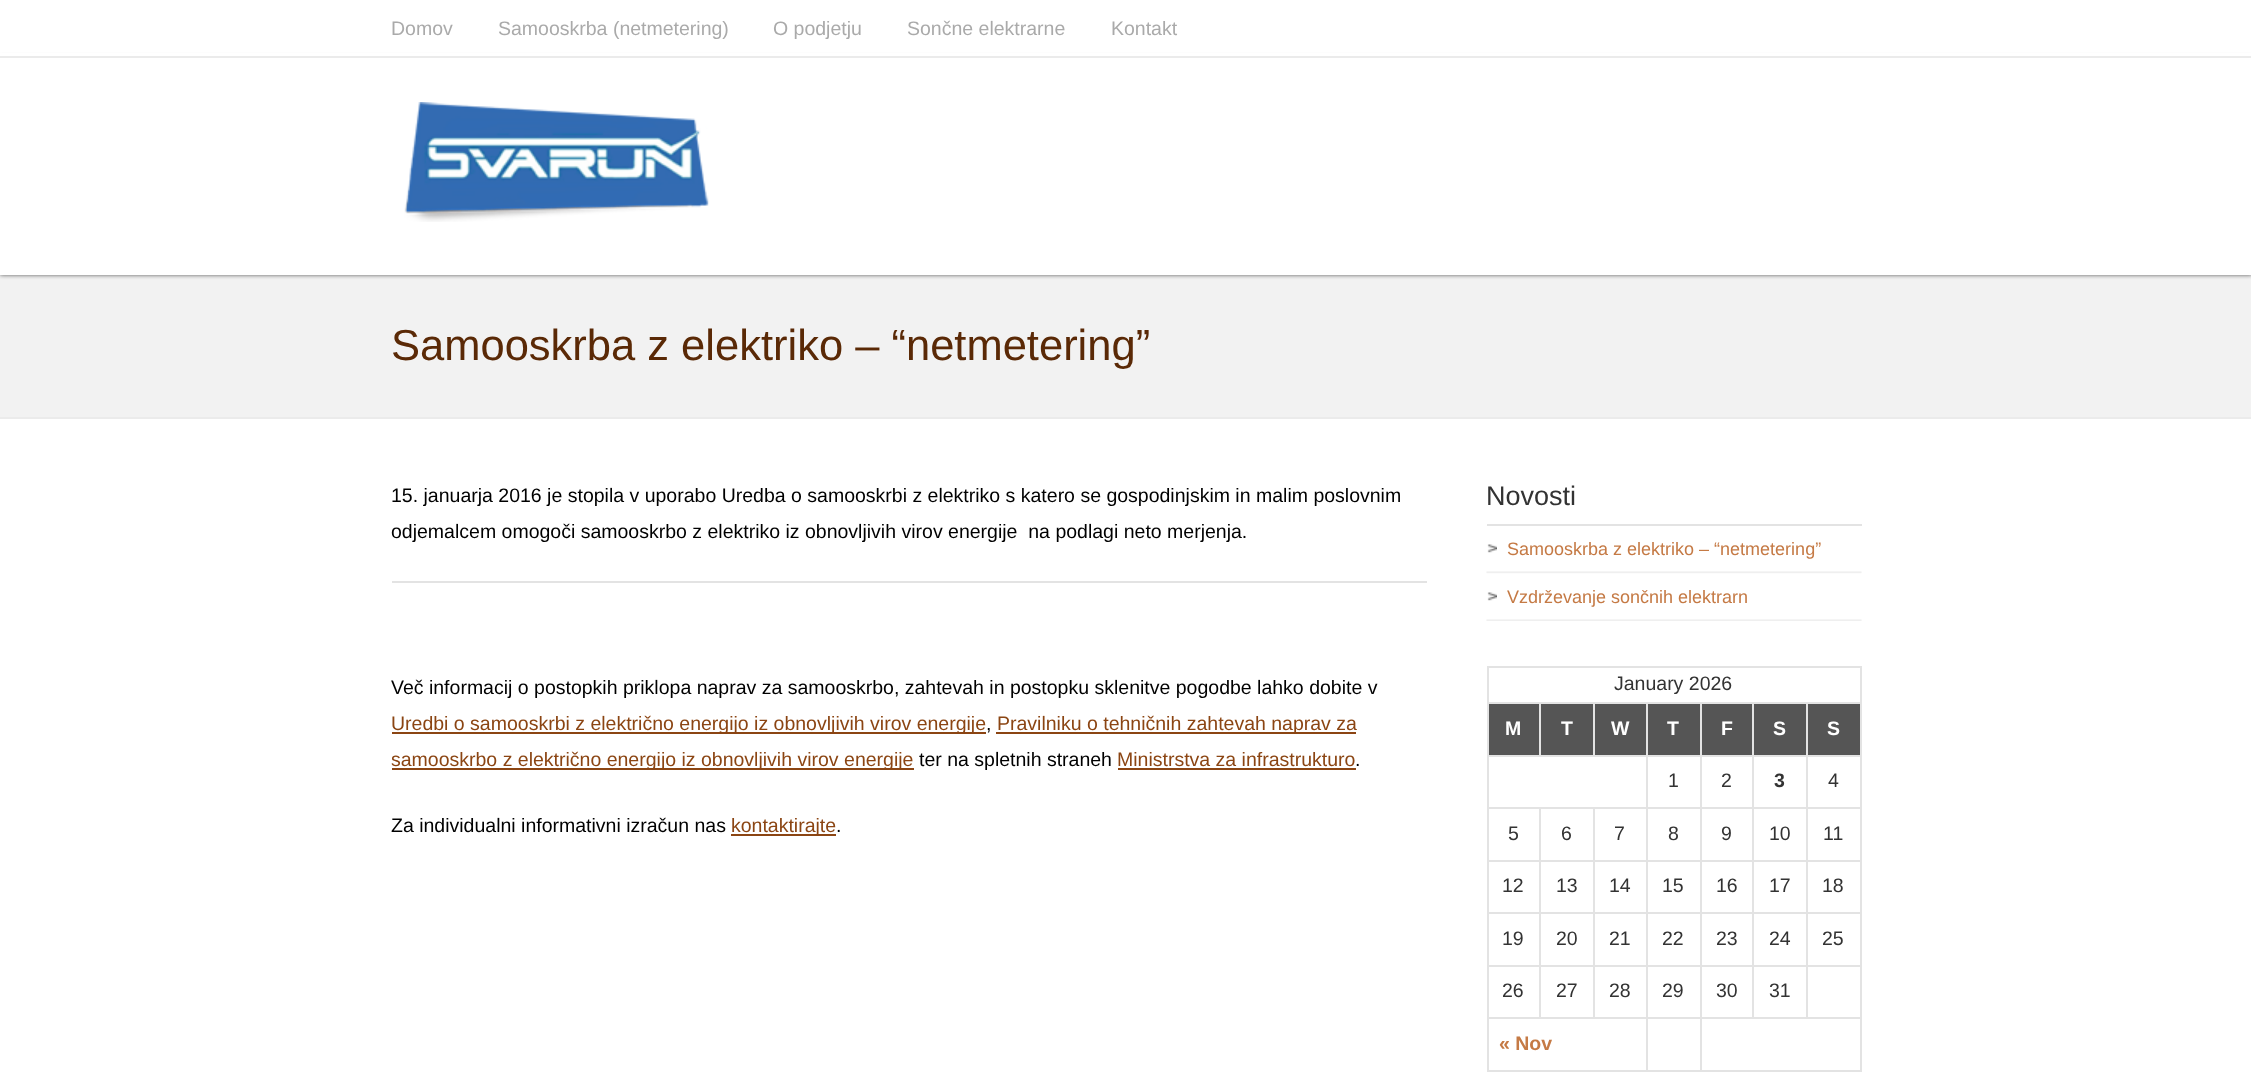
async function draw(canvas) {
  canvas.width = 2251
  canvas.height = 1075
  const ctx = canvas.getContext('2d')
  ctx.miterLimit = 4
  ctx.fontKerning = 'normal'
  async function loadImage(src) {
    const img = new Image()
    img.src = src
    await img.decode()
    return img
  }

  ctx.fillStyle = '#fff'
  ctx.fillRect(0, 0, 2251, 1075)
  ctx.fillStyle = '#f2f2f2'
  ctx.fillRect(0, 275, 2251, 142)
  ctx.fillStyle = '#555'
  ctx.filter = 'blur(2px)'
  ctx.beginPath()
  ctx.rect(0, 57, 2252, 218)
  ctx.fill()
  ctx.filter = 'none'
  ctx.fillStyle = '#fff'
  ctx.fillRect(0, 53, 2251, 3)
  ctx.fillStyle = '#ebebeb'
  ctx.fillRect(0, 56, 2251, 2)
  ctx.font = '19.5px Liberation Sans'
  ctx.fillStyle = '#aaa'
  ctx.fillText('Domov', 391, 35)
  ctx.fillText('Samooskrba (netmetering)', 498, 35)
  ctx.fillText('O podjetju', 773, 35)
  ctx.fillText('Sončne elektrarne', 907, 35)
  ctx.fillText('Kontakt', 1111, 35)
  ctx.fillStyle = '#fff'
  ctx.fillRect(0, 58, 2251, 217)
  ctx.drawImage(await loadImage('image0.png'), 404, 102, 305, 120)
  ctx.fillStyle = '#ebebeb'
  ctx.fillRect(0, 417, 2251, 2)
  ctx.font = '43.5px Liberation Sans'
  ctx.fillStyle = '#5a2906'
  ctx.fillText('Samooskrba z elektriko – “netmetering”', 391, 360)
  ctx.font = '19.5px Liberation Sans'
  ctx.fillStyle = '#000'
  ctx.fillText('15. januarja 2016 je stopila v uporabo Uredba o samooskrbi z elektriko s katero se gospodinjskim in malim poslovnim', 391, 502)
  ctx.fillText('odjemalcem omogoči samooskrbo z elektriko iz obnovljivih virov energije  na podlagi neto merjenja.', 391, 538)
  ctx.fillStyle = '#e3e3e3'
  ctx.fillRect(392, 581, 1035, 2)
  ctx.fillStyle = '#000'
  ctx.fillText('Več informacij o postopkih priklopa naprav za samooskrbo, zahtevah in postopku sklenitve pogodbe lahko dobite v', 391, 694)
  ctx.fillStyle = '#8b4513'
  ctx.fillRect(392, 732, 594, 2)
  ctx.fillText('Uredbi o samooskrbi z električno energijo iz obnovljivih virov energije', 391, 730)
  ctx.fillStyle = '#000'
  ctx.fillText(',', 986, 730)
  ctx.fillStyle = '#8b4513'
  ctx.fillRect(996, 732, 360, 2)
  ctx.fillText('Pravilniku o tehničnih zahtevah naprav za', 997, 730)
  ctx.fillRect(392, 768, 522, 2)
  ctx.fillText('samooskrbo z električno energijo iz obnovljivih virov energije', 391, 766)
  ctx.fillStyle = '#000'
  ctx.fillText('ter na spletnih straneh', 919, 766)
  ctx.fillStyle = '#8b4513'
  ctx.fillText('Ministrstva za infrastrukturo', 1117, 766)
  ctx.fillRect(1118, 768, 238, 2)
  ctx.fillStyle = '#000'
  ctx.fillText('.', 1355, 766)
  ctx.fillText('Za individualni informativni izračun nas', 391, 832)
  ctx.fillStyle = '#8b4513'
  ctx.fillRect(731, 834, 105, 2)
  ctx.fillText('kontaktirajte', 731, 832)
  ctx.fillStyle = '#000'
  ctx.fillText('.', 836, 832)
  ctx.drawImage(await loadImage('image1.png'), 1486, 525, 376, 96)
  ctx.fillStyle = '#e3e3e3'
  ctx.fillRect(1487, 524, 375, 2)
  ctx.font = '27px Liberation Sans'
  ctx.fillStyle = '#333'
  ctx.fillText('Novosti', 1486, 505)
  ctx.drawImage(await loadImage('image2.png'), 1487, 544, 10, 9)
  ctx.font = '18px Liberation Sans'
  ctx.fillStyle = '#c57a45'
  ctx.fillText('Samooskrba z elektriko – “netmetering”', 1507, 555)
  ctx.drawImage(await loadImage('image2.png'), 1487, 592, 10, 9)
  ctx.fillText('Vzdrževanje sončnih elektrarn', 1507, 603)
  ctx.fillStyle = '#e3e3e3'
  ctx.fillRect(1487, 666, 375, 2)
  ctx.fillRect(1860, 666, 2, 405)
  ctx.fillRect(1487, 1070, 375, 2)
  ctx.fillRect(1487, 666, 2, 405)
  ctx.font = '19.5px Liberation Sans'
  ctx.fillStyle = '#333'
  ctx.fillText('January 2026', 1614, 690)
  ctx.fillStyle = '#555'
  ctx.fillRect(1489, 704, 50, 51)
  ctx.fillStyle = '#e3e3e3'
  ctx.fillRect(1806, 702, 56, 2)
  ctx.fillRect(1806, 755, 56, 2)
  ctx.fillRect(1806, 807, 56, 2)
  ctx.fillRect(1806, 860, 56, 2)
  ctx.fillRect(1806, 912, 56, 2)
  ctx.fillRect(1806, 965, 56, 2)
  ctx.fillRect(1806, 1017, 56, 2)
  ctx.fillRect(1806, 965, 2, 54)
  ctx.fillRect(1752, 965, 56, 2)
  ctx.fillRect(1806, 912, 2, 54)
  ctx.fillRect(1752, 912, 56, 2)
  ctx.fillRect(1806, 860, 2, 54)
  ctx.fillRect(1752, 860, 56, 2)
  ctx.fillRect(1806, 807, 2, 54)
  ctx.fillRect(1752, 807, 56, 2)
  ctx.fillRect(1806, 755, 2, 54)
  ctx.fillRect(1752, 755, 56, 2)
  ctx.fillRect(1806, 702, 2, 54)
  ctx.fillRect(1752, 702, 56, 2)
  ctx.fillRect(1752, 1017, 56, 2)
  ctx.fillRect(1752, 965, 2, 54)
  ctx.fillRect(1700, 965, 54, 2)
  ctx.fillRect(1752, 912, 2, 54)
  ctx.fillRect(1700, 912, 54, 2)
  ctx.fillRect(1752, 860, 2, 54)
  ctx.fillRect(1700, 860, 54, 2)
  ctx.fillRect(1752, 807, 2, 54)
  ctx.fillRect(1700, 807, 54, 2)
  ctx.fillRect(1752, 755, 2, 54)
  ctx.fillRect(1700, 755, 54, 2)
  ctx.fillRect(1752, 702, 2, 54)
  ctx.fillRect(1700, 702, 54, 2)
  ctx.fillRect(1700, 1017, 54, 2)
  ctx.fillRect(1700, 965, 2, 54)
  ctx.fillRect(1646, 965, 55, 2)
  ctx.fillRect(1700, 912, 2, 54)
  ctx.fillRect(1646, 912, 55, 2)
  ctx.fillRect(1700, 860, 2, 54)
  ctx.fillRect(1646, 860, 55, 2)
  ctx.fillRect(1700, 807, 2, 54)
  ctx.fillRect(1646, 807, 55, 2)
  ctx.fillRect(1700, 755, 2, 54)
  ctx.fillRect(1646, 755, 55, 2)
  ctx.fillRect(1700, 702, 2, 54)
  ctx.fillRect(1646, 702, 55, 2)
  ctx.fillRect(1646, 1017, 55, 2)
  ctx.fillRect(1646, 965, 2, 54)
  ctx.fillRect(1593, 965, 54, 2)
  ctx.fillRect(1646, 912, 2, 54)
  ctx.fillRect(1593, 912, 54, 2)
  ctx.fillRect(1646, 860, 2, 54)
  ctx.fillRect(1593, 860, 54, 2)
  ctx.fillRect(1646, 807, 2, 54)
  ctx.fillRect(1593, 807, 54, 2)
  ctx.fillRect(1646, 755, 2, 54)
  ctx.fillRect(1487, 755, 160, 2)
  ctx.fillRect(1646, 702, 2, 54)
  ctx.fillRect(1593, 702, 54, 2)
  ctx.fillRect(1593, 702, 2, 54)
  ctx.fillRect(1539, 702, 56, 2)
  ctx.fillRect(1539, 702, 2, 54)
  ctx.fillRect(1487, 702, 54, 2)
  ctx.font = 'bold 19.5px Liberation Sans'
  ctx.fillStyle = '#fff'
  ctx.fillText('M', 1505, 735)
  ctx.fillStyle = '#555'
  ctx.fillRect(1541, 704, 52, 51)
  ctx.fillStyle = '#fff'
  ctx.fillText('T', 1561, 735)
  ctx.fillStyle = '#555'
  ctx.fillRect(1595, 704, 51, 51)
  ctx.fillStyle = '#fff'
  ctx.fillText('W', 1611, 735)
  ctx.fillStyle = '#555'
  ctx.fillRect(1648, 704, 52, 51)
  ctx.fillStyle = '#fff'
  ctx.fillText('T', 1667, 735)
  ctx.fillStyle = '#555'
  ctx.fillRect(1702, 704, 50, 51)
  ctx.fillStyle = '#fff'
  ctx.fillText('F', 1721, 735)
  ctx.fillStyle = '#555'
  ctx.fillRect(1754, 704, 52, 51)
  ctx.fillStyle = '#fff'
  ctx.fillText('S', 1773, 735)
  ctx.fillStyle = '#555'
  ctx.fillRect(1808, 704, 52, 51)
  ctx.fillStyle = '#fff'
  ctx.fillText('S', 1827, 735)
  ctx.font = '19.5px Liberation Sans'
  ctx.fillStyle = '#333'
  ctx.fillText('1', 1668, 787)
  ctx.fillText('2', 1721, 787)
  ctx.font = 'bold 19.5px Liberation Sans'
  ctx.fillText('3', 1774, 787)
  ctx.font = '19.5px Liberation Sans'
  ctx.fillText('4', 1828, 787)
  ctx.fillStyle = '#e3e3e3'
  ctx.fillRect(1593, 1017, 54, 2)
  ctx.fillRect(1593, 965, 2, 54)
  ctx.fillRect(1539, 965, 56, 2)
  ctx.fillRect(1593, 912, 2, 54)
  ctx.fillRect(1539, 912, 56, 2)
  ctx.fillRect(1593, 860, 2, 54)
  ctx.fillRect(1539, 860, 56, 2)
  ctx.fillRect(1593, 807, 2, 54)
  ctx.fillRect(1539, 807, 56, 2)
  ctx.fillRect(1539, 1017, 56, 2)
  ctx.fillRect(1539, 965, 2, 54)
  ctx.fillRect(1487, 965, 54, 2)
  ctx.fillRect(1539, 912, 2, 54)
  ctx.fillRect(1487, 912, 54, 2)
  ctx.fillRect(1539, 860, 2, 54)
  ctx.fillRect(1487, 860, 54, 2)
  ctx.fillRect(1539, 807, 2, 54)
  ctx.fillRect(1487, 807, 54, 2)
  ctx.fillStyle = '#333'
  ctx.fillText('5', 1508, 840)
  ctx.fillText('6', 1561, 840)
  ctx.fillText('7', 1614, 840)
  ctx.fillText('8', 1668, 840)
  ctx.fillText('9', 1721, 840)
  ctx.fillText('10', 1769, 840)
  ctx.fillText('11', 1823, 840)
  ctx.fillText('12', 1502, 892)
  ctx.fillText('13', 1556, 892)
  ctx.fillText('14', 1609, 892)
  ctx.fillText('15', 1662, 892)
  ctx.fillText('16', 1716, 892)
  ctx.fillText('17', 1769, 892)
  ctx.fillText('18', 1822, 892)
  ctx.fillText('19', 1502, 945)
  ctx.fillText('20', 1556, 945)
  ctx.fillText('21', 1609, 945)
  ctx.fillText('22', 1662, 945)
  ctx.fillText('23', 1716, 945)
  ctx.fillText('24', 1769, 945)
  ctx.fillText('25', 1822, 945)
  ctx.fillStyle = '#e3e3e3'
  ctx.fillRect(1487, 1017, 54, 2)
  ctx.fillStyle = '#333'
  ctx.fillText('26', 1502, 997)
  ctx.fillText('27', 1556, 997)
  ctx.fillText('28', 1609, 997)
  ctx.fillText('29', 1662, 997)
  ctx.fillText('30', 1716, 997)
  ctx.fillText('31', 1769, 997)
  ctx.font = 'bold 19.5px Liberation Sans'
  ctx.fillStyle = '#c57a45'
  ctx.fillText('« Nov', 1499, 1050)
  ctx.fillStyle = '#e3e3e3'
  ctx.fillRect(1646, 1017, 2, 54)
  ctx.fillRect(1700, 1017, 2, 54)
}

draw(document.querySelector('canvas'))
